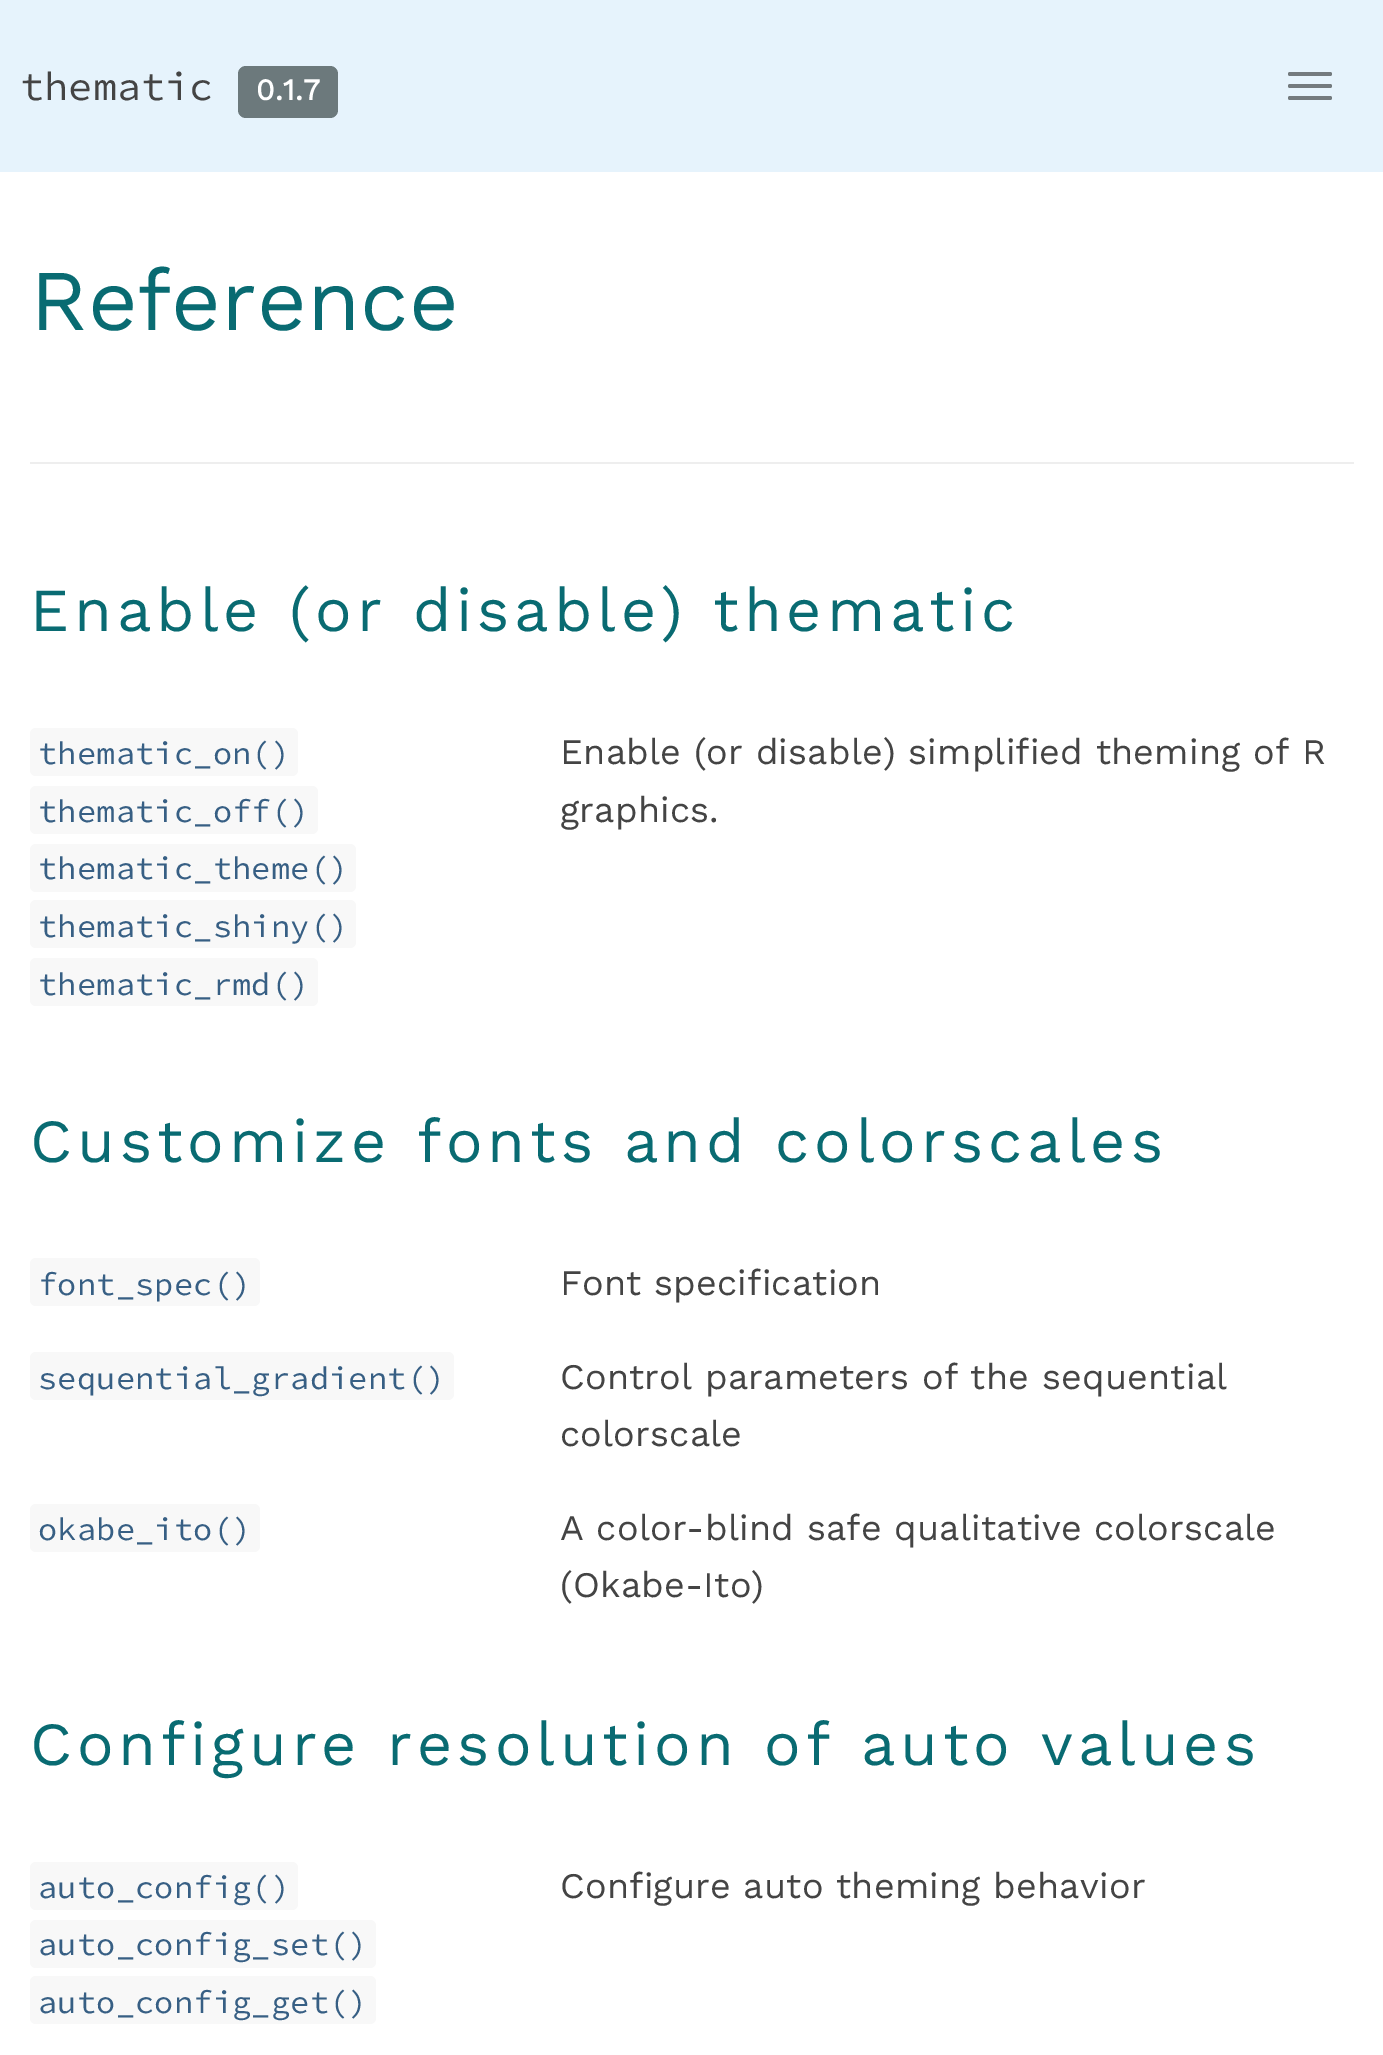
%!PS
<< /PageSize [1383 2055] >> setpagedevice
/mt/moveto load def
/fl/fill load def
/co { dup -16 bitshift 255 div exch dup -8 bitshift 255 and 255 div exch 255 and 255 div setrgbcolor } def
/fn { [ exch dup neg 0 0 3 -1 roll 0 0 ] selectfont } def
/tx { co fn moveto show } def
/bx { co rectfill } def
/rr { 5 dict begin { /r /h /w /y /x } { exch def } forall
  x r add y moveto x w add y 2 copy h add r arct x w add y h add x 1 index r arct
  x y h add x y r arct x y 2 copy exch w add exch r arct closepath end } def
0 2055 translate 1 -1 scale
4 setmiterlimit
0 0 1383 2055 16#FFFFFF bx
0 0 1383 172 16#E6F3FC bx
16#6C797C co
238 66 100 52 8 rr fl
16#737A7E co
1288 72 44 4 2 rr fl
1288 84 44 4 2 rr fl
1288 96 44 4 2 rr fl
30 462 1324 2 16#EEEEEE bx
16#F8F8F8 co
30 728 268 48 6 rr fl
30 786 288 48 6 rr fl
30 844 326 48 6 rr fl
30 900 326 48 6 rr fl
30 958 288 48 6 rr fl
30 1258 230 48 6 rr fl
30 1352 424 48 6 rr fl
30 1504 230 48 6 rr fl
30 1862 268 48 6 rr fl
30 1920 346 48 6 rr fl
30 1976 346 48 6 rr fl
/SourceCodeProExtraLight-ExtraLight 40 fn
16#444444 co
20 100 mt .2 0 (thematic) ashow
/WorkSans-Bold 30 fn
16#FFFFFF co
256 100 mt .2 0 (0.1.7) ashow
(Reference) 30 330 /WorkSans-Regular 86.5 16#096B72 tx
/WorkSans-Regular 61.2 fn
30 631 mt 4.9 0 (Enable \(or disable\) thematic) ashow
/SourceCodeProExtraLight-ExtraLight 32 fn
16#375F84 co
38 764 mt .2 0 (thematic_on\(\)) ashow
38 822 mt .2 0 (thematic_off\(\)) ashow
38 879 mt .2 0 (thematic_theme\(\)) ashow
38 937 mt .2 0 (thematic_shiny\(\)) ashow
38 995 mt .2 0 (thematic_rmd\(\)) ashow
/WorkSans-Regular 36 fn
16#444444 co
560 764 mt .2 0 (Enable \(or disable\) simplified theming of R) ashow
560 822 mt .2 0 (graphics.) ashow
/WorkSans-Regular 61.2 fn
16#096B72 co
30 1162 mt 4.9 0 (Customize fonts and colorscales) ashow
/SourceCodeProExtraLight-ExtraLight 32 fn
16#375F84 co
38 1295 mt .2 0 (font_spec\(\)) ashow
/WorkSans-Regular 36 fn
16#444444 co
560 1295 mt .2 0 (Font specification) ashow
/SourceCodeProExtraLight-ExtraLight 32 fn
16#375F84 co
38 1389 mt .2 0 (sequential_gradient\(\)) ashow
/WorkSans-Regular 36 fn
16#444444 co
560 1389 mt .2 0 (Control parameters of the sequential) ashow
560 1446 mt .2 0 (colorscale) ashow
/SourceCodeProExtraLight-ExtraLight 32 fn
16#375F84 co
38 1540 mt .2 0 (okabe_ito\(\)) ashow
/WorkSans-Regular 36 fn
16#444444 co
560 1540 mt .2 0 (A color-blind safe qualitative colorscale) ashow
560 1597 mt .2 0 (\(Okabe-Ito\)) ashow
/WorkSans-Regular 61.2 fn
16#096B72 co
30 1765 mt 4.9 0 (Configure resolution of auto values) ashow
/SourceCodeProExtraLight-ExtraLight 32 fn
16#375F84 co
38 1898 mt .2 0 (auto_config\(\)) ashow
38 1955 mt .2 0 (auto_config_set\(\)) ashow
38 2013 mt .2 0 (auto_config_get\(\)) ashow
/WorkSans-Regular 36 fn
16#444444 co
560 1898 mt .2 0 (Configure auto theming behavior) ashow
showpage
